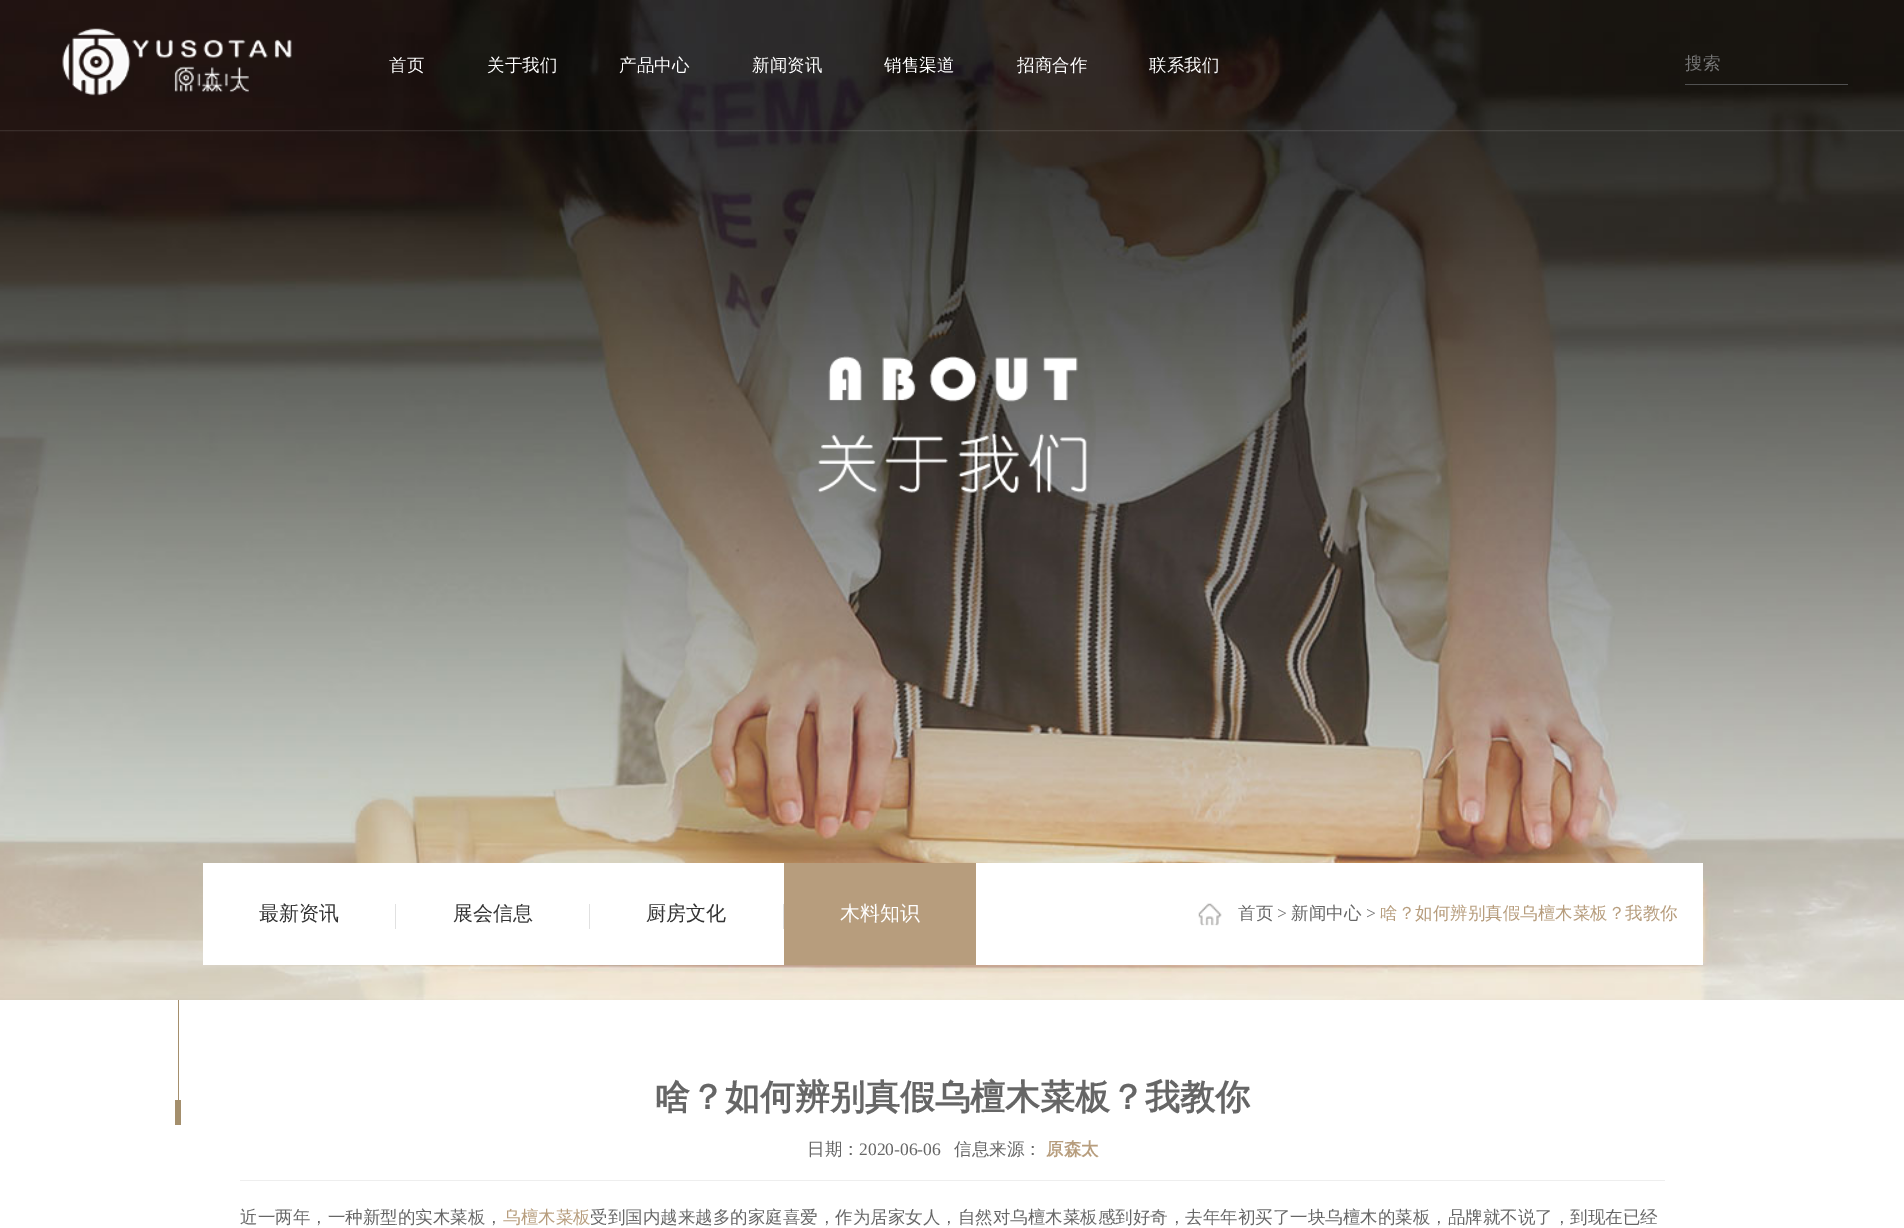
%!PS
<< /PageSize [1904 1228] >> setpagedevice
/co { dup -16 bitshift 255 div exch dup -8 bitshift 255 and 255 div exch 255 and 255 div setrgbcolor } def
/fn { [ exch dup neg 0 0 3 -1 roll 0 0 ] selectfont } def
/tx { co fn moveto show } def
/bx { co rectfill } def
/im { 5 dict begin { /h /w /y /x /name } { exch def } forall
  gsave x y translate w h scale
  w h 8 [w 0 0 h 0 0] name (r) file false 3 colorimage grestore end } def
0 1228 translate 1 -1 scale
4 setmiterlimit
0 0 1904 1228 16#FFFFFF bx
(media/1.raw) 0 0 1904 1000 im
(media/2.raw) 818 356 269 137 im
(media/3.raw) 0 130 1904 2 im
(media/4.raw) 62 28 230 68 im
1685 84 163 1 16#515151 bx
203 863 1500 102 16#FFFFFF bx
395 904 1 25 16#E1E1E1 bx
589 904 1 25 16#E1E1E1 bx
783 904 1 25 16#E1E1E1 bx
784 863 192 102 16#B79D7D bx
(media/5.raw) 1198 903 24 23 im
178 1000 1 100 16#A48F6D bx
175 1100 6 25 16#A48F6D bx
240 1180 1425 1 16#EEEEEE bx
(首页) 389 71 /WenQuanYiZenHei-Medium 17.5 16#FFFFFF tx
(关于我们) 487 71 /WenQuanYiZenHei-Medium 17.5 16#FFFFFF tx
(产品中心) 619 71 /WenQuanYiZenHei-Medium 17.5 16#FFFFFF tx
(新闻资讯) 752 71 /WenQuanYiZenHei-Medium 17.5 16#FFFFFF tx
(销售渠道) 884 71 /WenQuanYiZenHei-Medium 17.5 16#FFFFFF tx
(招商合作) 1017 71 /WenQuanYiZenHei-Medium 17.5 16#FFFFFF tx
(联系我们) 1149 71 /WenQuanYiZenHei-Medium 17.5 16#FFFFFF tx
(搜索) 1685 69 /WenQuanYiZenHei-Medium 17.5 16#757575 tx
(最新资讯) 259 920 /WenQuanYiZenHei-Medium 20 16#333333 tx
(展会信息) 453 920 /WenQuanYiZenHei-Medium 20 16#333333 tx
(厨房文化) 646 920 /WenQuanYiZenHei-Medium 20 16#333333 tx
(木料知识) 840 920 /WenQuanYiZenHei-Medium 20 16#FFFFFF tx
(首页) 1238 919 /WenQuanYiZenHei-Medium 17.5 16#666666 tx
(>) 1277 919 /LiberationSerif-Regular 17.5 16#666666 tx
(新闻中心) 1291 919 /WenQuanYiZenHei-Medium 17.5 16#666666 tx
(>) 1366 919 /LiberationSerif-Regular 17.5 16#666666 tx
(啥？如何辨别真假乌檀木菜板？我教你) 1380 919 /WenQuanYiZenHei-Medium 17.5 16#B79D7D tx
(啥？如何辨别真假乌檀木菜板？我教你) 655 1109 /WenQuanYiZenHei-Bold 35 16#666666 tx
(日期：) 807 1155 /WenQuanYiZenHei-Medium 17.5 16#666666 tx
(2020-06-06) 859 1155 /LiberationSerif-Regular 17.5 16#666666 tx
(信息来源：) 954 1155 /WenQuanYiZenHei-Medium 17.5 16#666666 tx
(原森太) 1046 1155 /WenQuanYiZenHei-Bold 17.5 16#B79D7D tx
(近一两年，一种新型的实木菜板，) 240 1223 /WenQuanYiZenHei-Medium 17.5 16#666666 tx
(乌檀木菜板) 503 1223 /WenQuanYiZenHei-Medium 17.5 16#B79D7D tx
(受到国内越来越多的家庭喜爱，作为居家女人，自然对乌檀木菜板感到好奇，去年年初买了一块乌檀木的菜板，品牌就不说了，到现在已经) 590 1223 /WenQuanYiZenHei-Medium 17.5 16#666666 tx
showpage
